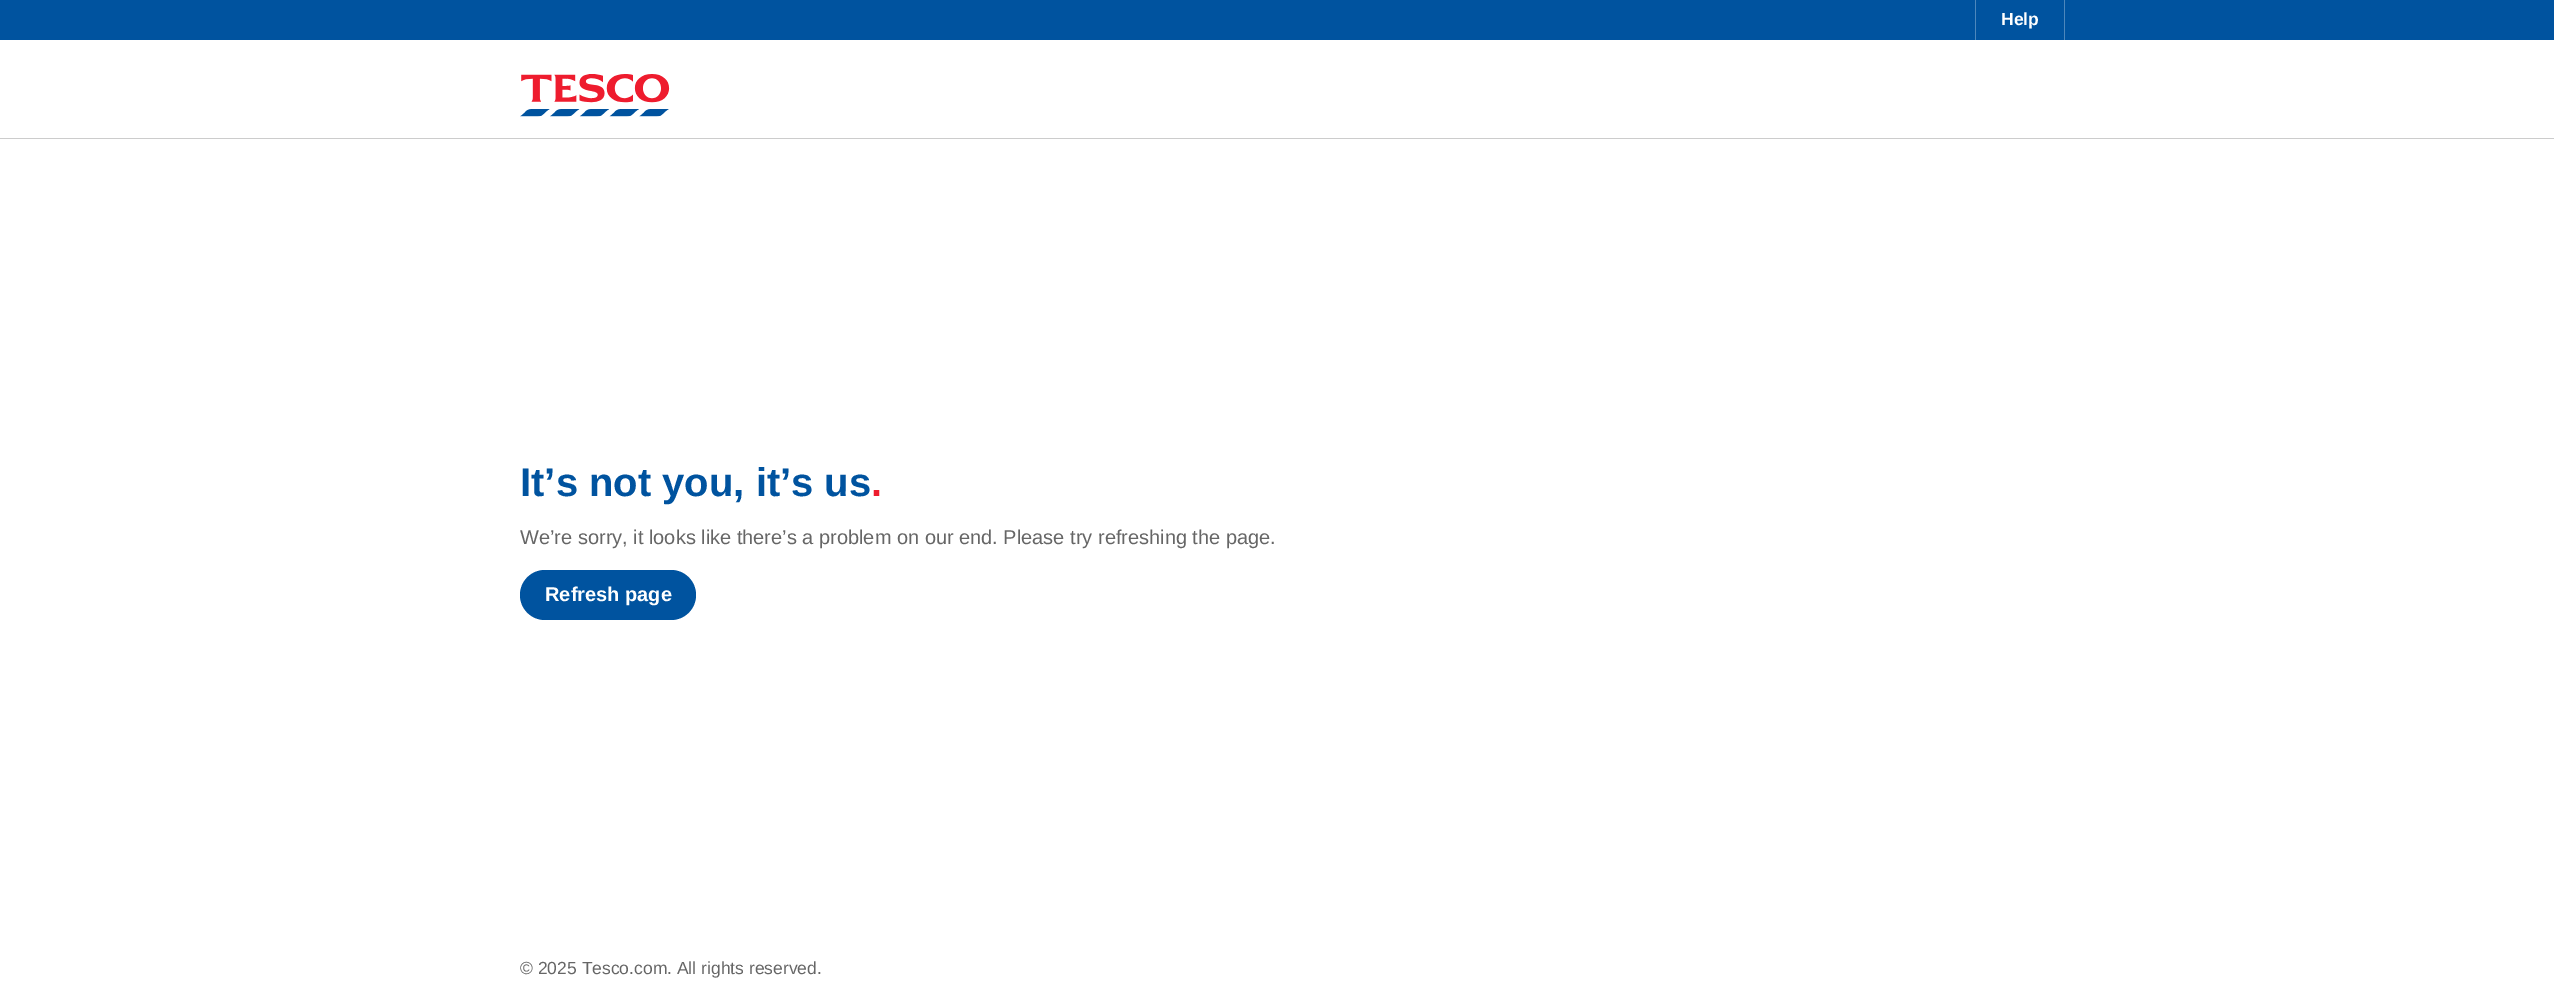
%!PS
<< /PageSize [2554 993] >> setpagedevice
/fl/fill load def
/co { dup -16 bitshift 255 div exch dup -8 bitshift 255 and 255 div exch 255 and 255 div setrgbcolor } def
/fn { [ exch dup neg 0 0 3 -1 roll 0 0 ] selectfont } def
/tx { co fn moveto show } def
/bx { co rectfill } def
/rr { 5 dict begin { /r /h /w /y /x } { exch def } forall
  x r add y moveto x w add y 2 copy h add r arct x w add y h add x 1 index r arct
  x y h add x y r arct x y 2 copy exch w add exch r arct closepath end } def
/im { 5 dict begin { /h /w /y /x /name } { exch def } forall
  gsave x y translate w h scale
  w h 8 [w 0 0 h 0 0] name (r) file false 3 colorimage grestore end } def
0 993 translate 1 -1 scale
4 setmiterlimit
0 0 2554 993 16#FFFFFF bx
0 0 2554 40 16#00539F bx
2064 0 1 40 16#4D87BC bx
1975 0 1 40 16#4D87BC bx
(media/1.raw) 520 74 150 43 im
0 138 2554 1 16#CCCCCC bx
16#00539F co
520 570 176 50 25 rr fl
(Help) 2001 25 /LiberationSans-Bold 17.5 16#FFFFFF tx
(It’s not you, it’s us) 520 496 /LiberationSans-Bold 40 16#00539F tx
(.) 871 496 /LiberationSans-Bold 40 16#EE1C2E tx
(We’re sorry, it looks like there’s a problem on our end. Please try refreshing the page.) 520 544 /LiberationSans-Regular 20 16#666666 tx
(Refresh page) 545 601 /LiberationSans-Bold 20 16#FFFFFF tx
(© 2025 Tesco.com. All rights reserved.) 520 974 /LiberationSans-Regular 17.5 16#666666 tx
showpage
